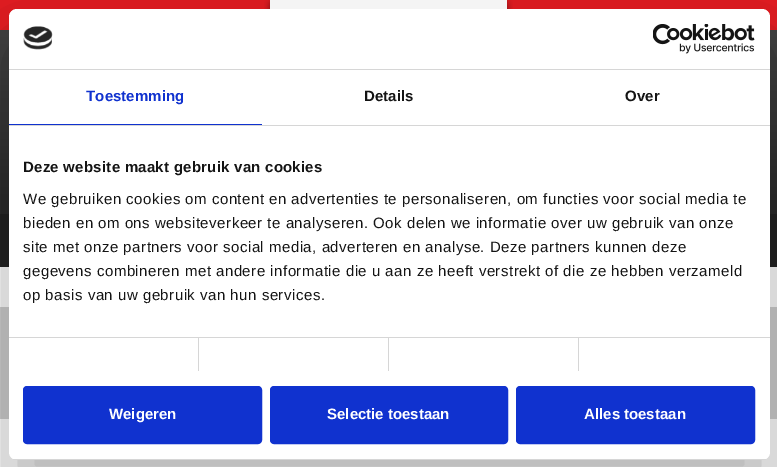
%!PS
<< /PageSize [777 467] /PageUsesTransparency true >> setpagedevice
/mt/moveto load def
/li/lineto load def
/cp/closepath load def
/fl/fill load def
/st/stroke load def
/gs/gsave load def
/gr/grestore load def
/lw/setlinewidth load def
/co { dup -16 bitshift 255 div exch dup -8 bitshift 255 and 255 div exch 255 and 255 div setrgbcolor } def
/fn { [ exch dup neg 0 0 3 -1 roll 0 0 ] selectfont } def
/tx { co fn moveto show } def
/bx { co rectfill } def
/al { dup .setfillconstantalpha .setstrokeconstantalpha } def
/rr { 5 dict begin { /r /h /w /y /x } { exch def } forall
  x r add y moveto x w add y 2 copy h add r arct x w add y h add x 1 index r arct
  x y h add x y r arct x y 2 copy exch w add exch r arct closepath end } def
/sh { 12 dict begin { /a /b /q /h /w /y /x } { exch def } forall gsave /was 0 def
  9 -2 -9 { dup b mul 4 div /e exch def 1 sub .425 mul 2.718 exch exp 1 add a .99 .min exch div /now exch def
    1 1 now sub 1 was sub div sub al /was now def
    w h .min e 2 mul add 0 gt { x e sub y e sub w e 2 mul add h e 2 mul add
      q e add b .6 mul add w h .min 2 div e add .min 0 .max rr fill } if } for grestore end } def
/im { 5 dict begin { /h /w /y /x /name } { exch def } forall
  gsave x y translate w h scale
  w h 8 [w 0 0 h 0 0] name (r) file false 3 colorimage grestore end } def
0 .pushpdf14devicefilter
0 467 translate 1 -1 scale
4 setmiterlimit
0 0 777 467 16#FFFFFF bx
0 0 777 30 16#E21C21 bx
gs 0 30 mt 777 30 li 777 214 li 0 214 li cp clip newpath
<< /ShadingType 2 /ColorSpace /DeviceRGB /Coords [389 30 389 267] /Extend [true true] /Function << /FunctionType 2 /Domain [0 1] /C0 [.271 .271 .271] /C1 [.133 .133 .133] /N 1 >> >> shfill gr
(media/1.raw) 264 0 249 9 im
0 214 777 53 16#222222 bx
0 307 777 112 16#D0D0D0 bx
16#000000 co
9 41 761 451 8 34 .3 sh
16#FFFFFF co
9 9 761 451 8 rr fl
9 69 761 1 16#D6D6D6 bx
(media/2.raw) 23 26 30 24 im
(media/3.raw) 653 24 102 30 im
9 125 761 1 16#D6D6D6 bx
9 124 253 1 16#1032CF bx
9 337 761 1 16#D6D6D6 bx
198 338 1 33 16#D6D6D6 bx
388 338 1 33 16#D6D6D6 bx
578 338 1 33 16#D6D6D6 bx
gs
9 9 761 451 8 rr clip newpath
9 459 761 1 16#D6D6D6 bx
gr
16#1032CF co
24 387 237 56 3 rr gs fl gr
2 lw
st
271 387 236 56 3 rr gs fl gr
st
517 387 237 56 3 rr gs fl gr
st
/LiberationSans-Bold 15 fn
86 101 mt .1 0 (Toestemming) ashow
16#141414 co
364 101 mt .1 0 (Details) ashow
625 101 mt .1 0 (Over) ashow
23 172 mt .25 0 (Deze website maakt gebruik van cookies) ashow
/LiberationSans-Regular 15 fn
23 204 mt .5 0 (We gebruiken cookies om content en advertenties te personaliseren, om functies voor social media te) ashow
23 228 mt .5 0 (bieden en om ons websiteverkeer te analyseren. Ook delen we informatie over uw gebruik van onze) ashow
23 252 mt .5 0 (site met onze partners voor social media, adverteren en analyse. Deze partners kunnen deze) ashow
23 276 mt .5 0 (gegevens combineren met andere informatie die u aan ze heeft verstrekt of die ze hebben verzameld) ashow
23 300 mt .5 0 (op basis van uw gebruik van hun services.) ashow
(Weigeren) 109 419 /LiberationSans-Bold 15 16#FFFFFF tx
(Selectie toestaan) 327 419 /LiberationSans-Bold 15 16#FFFFFF tx
(Alles toestaan) 584 419 /LiberationSans-Bold 15 16#FFFFFF tx
.poppdf14devicefilter showpage
